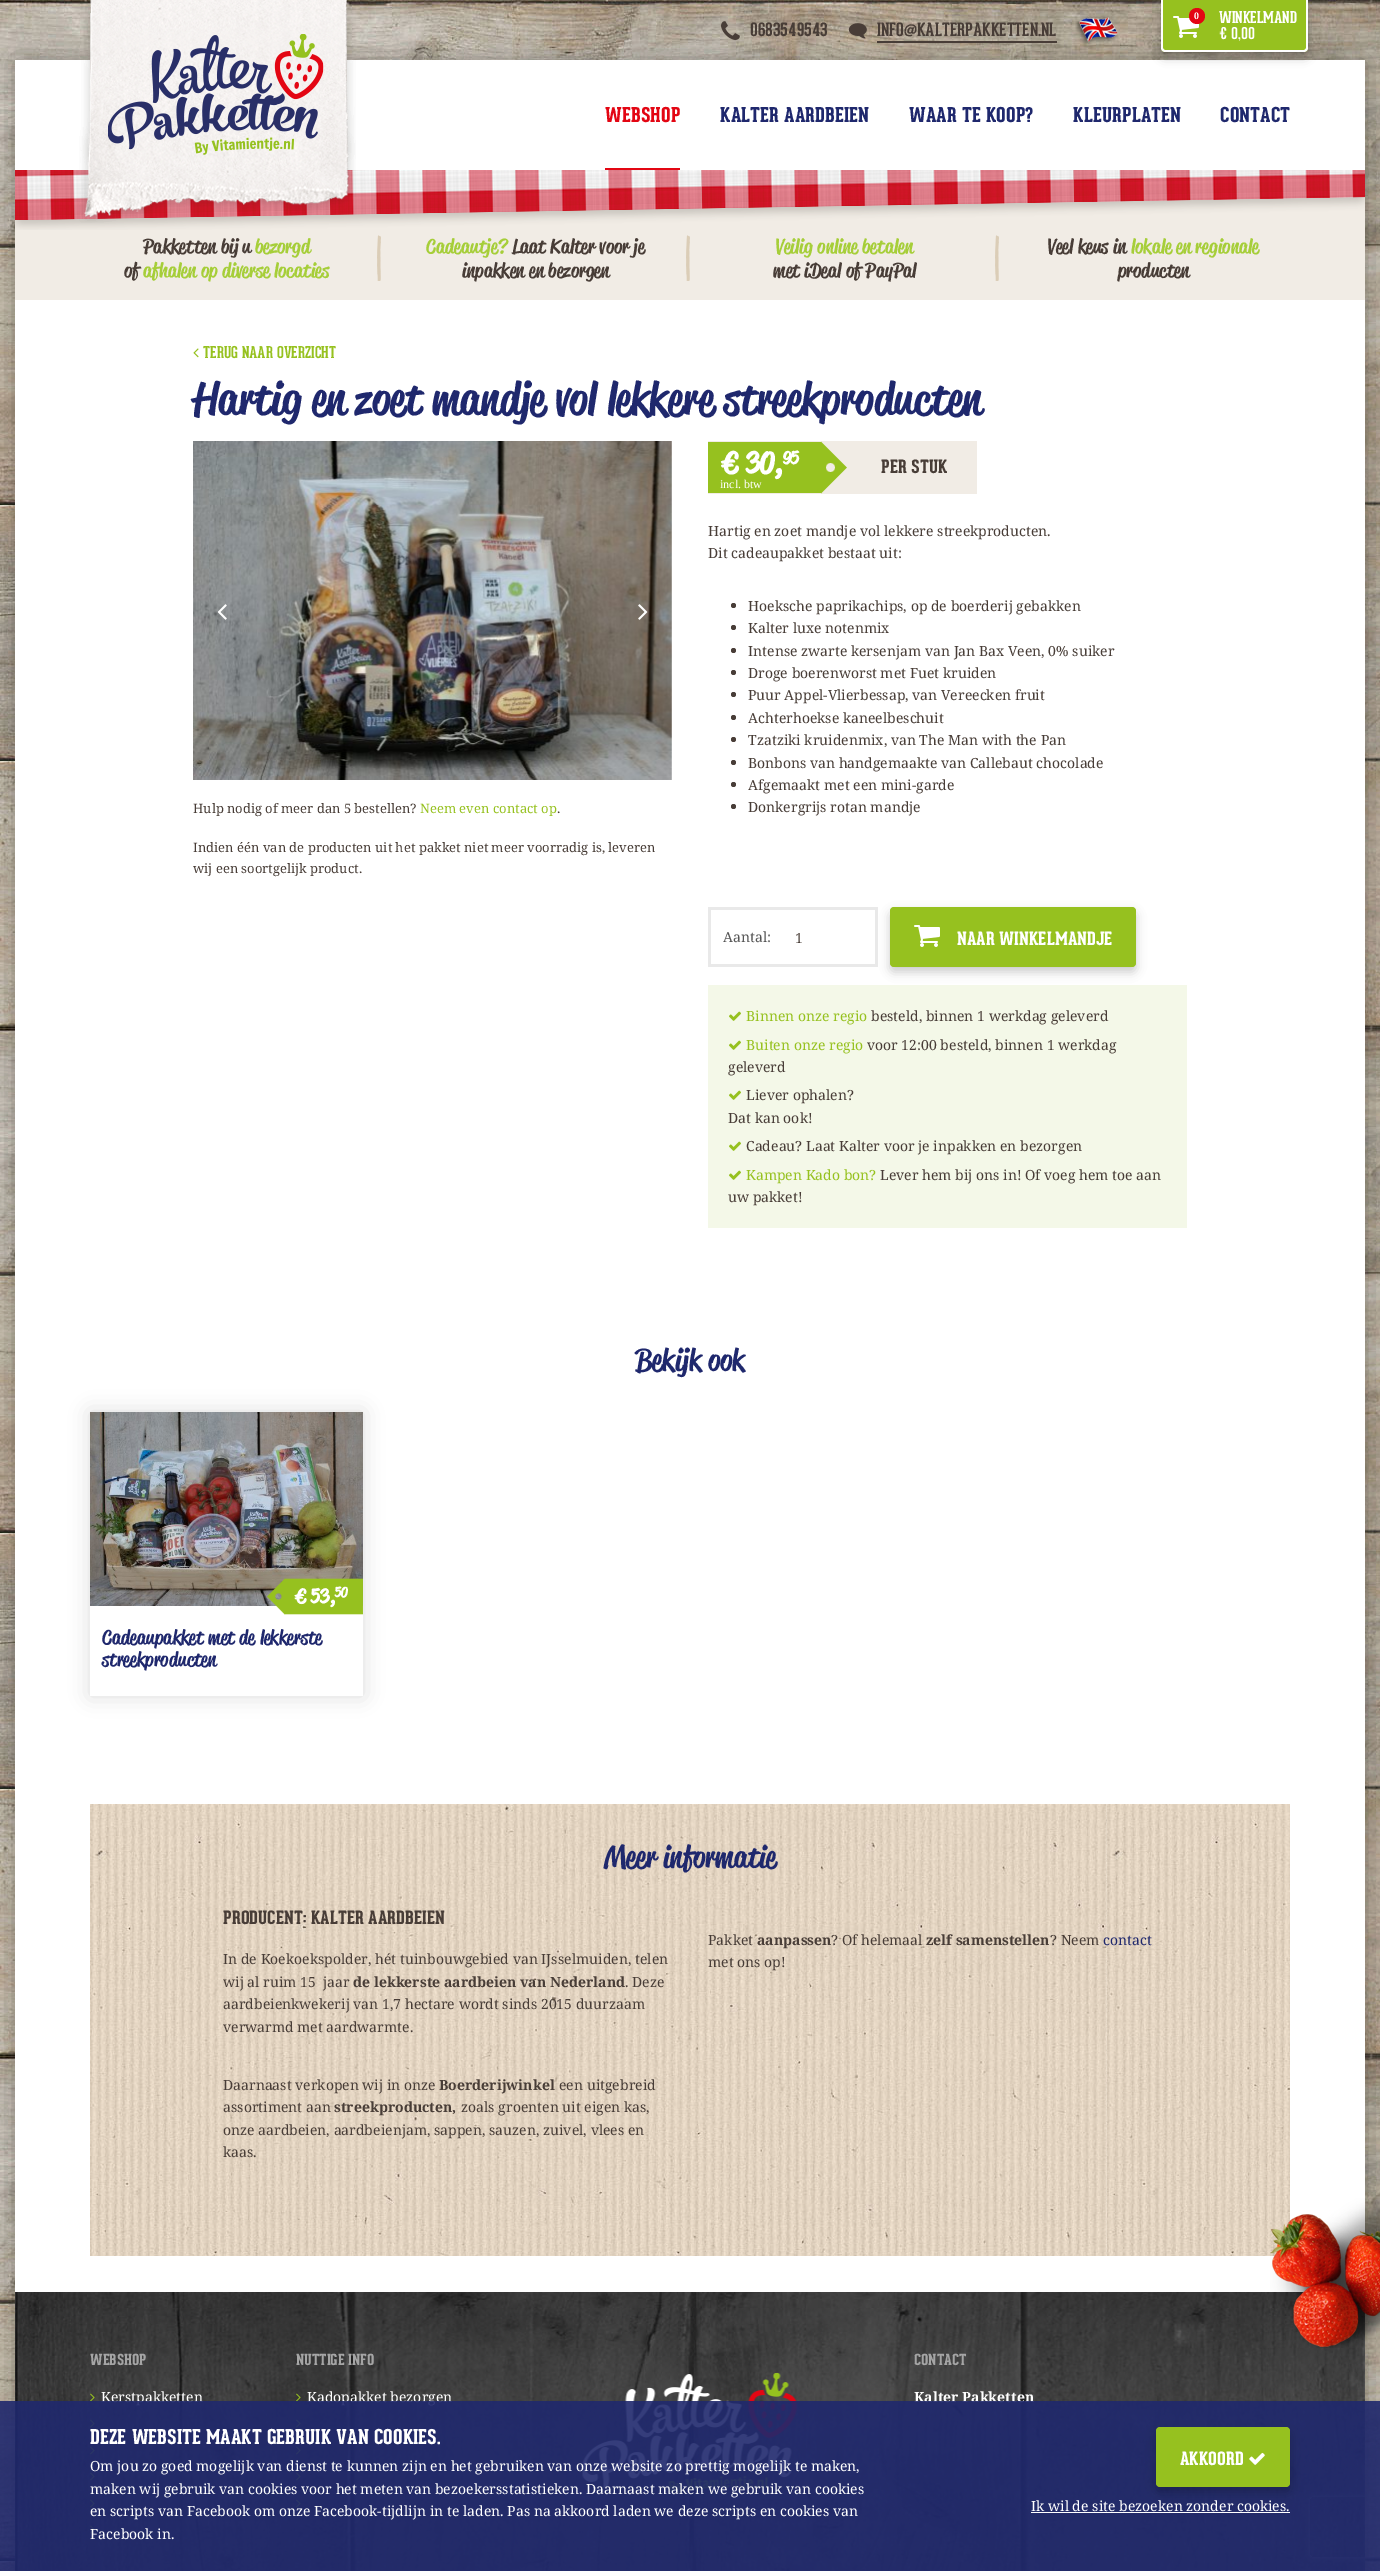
%!PS
<< /PageSize [1380 2571] /PageUsesTransparency true >> setpagedevice
/mt/moveto load def
/li/lineto load def
/ct/curveto load def
/cp/closepath load def
/fl/fill load def
/gs/gsave load def
/gr/grestore load def
/co { dup -16 bitshift 255 div exch dup -8 bitshift 255 and 255 div exch 255 and 255 div setrgbcolor } def
/fn { [ exch dup neg 0 0 3 -1 roll 0 0 ] selectfont } def
/tx { co fn moveto show } def
/bx { co rectfill } def
/al { dup .setfillconstantalpha .setstrokeconstantalpha } def
/ci { newpath 0 360 arc closepath } def
/rr { 5 dict begin { /r /h /w /y /x } { exch def } forall
  x r add y moveto x w add y 2 copy h add r arct x w add y h add x 1 index r arct
  x y h add x y r arct x y 2 copy exch w add exch r arct closepath end } def
/sh { 12 dict begin { /a /b /q /h /w /y /x } { exch def } forall gsave /was 0 def
  9 -2 -9 { dup b mul 4 div /e exch def 1 sub .425 mul 2.718 exch exp 1 add a .99 .min exch div /now exch def
    1 1 now sub 1 was sub div sub al /was now def
    w h .min e 2 mul add 0 gt { x e sub y e sub w e 2 mul add h e 2 mul add
      q e add b .6 mul add w h .min 2 div e add .min 0 .max rr fill } if } for grestore end } def
/im { 5 dict begin { /h /w /y /x /name } { exch def } forall
  gsave x y translate w h scale
  w h 8 [w 0 0 h 0 0] name (r) file false 3 colorimage grestore end } def
0 .pushpdf14devicefilter
0 2571 translate 1 -1 scale
4 setmiterlimit
0 0 1380 2571 16#FFFFFF bx
(media/1.raw) 0 0 1380 2571 im
16#1F1D17 co
15 60 1350 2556 0 15 .4 sh
15 60 1350 2232 16#FFFFFF bx
(media/2.raw) 721 21 19 19 im
(media/3.raw) 848 23 19 16 im
877 41 180 2 16#483D37 bx
(media/4.raw) 1075 17 43 29 im
16#000000 co
1161 5 147 52 4 5 .3 sh
16#96C11F co
1161 0 mt 1308 0 li 1308 48 li 1308 50 1306 52 1304 52 ct 1165 52 li 1163 52 1161 50 1161 48 ct cp fl
16#FFFFFF co
1161 0 mt 1308 0 li 1308 48 li 1308 50 1306 52 1304 52 ct 1165 52 li 1163 52 1161 50 1161 48 ct cp 1163 0 mt 1306 0 li 1306 48 li 1306 49 1305 50 1304 50 ct 1165 50 li 1164 50 1163 49 1163 48 ct cp eofill
(media/5.raw) 1173 16 26 22 im
16#E30613 co
1197 16 8 ci fl
15 170 1350 130 16#F1ECE5 bx
(media/8.raw) 15 170 1350 60 im
(media/6.raw) 79 0 277 223 im
(media/7.raw) 108 34 216 121 im
605 168 75 2 16#E30613 bx
(media/9.raw) 377 235 4 46 im
(media/9.raw) 686 235 4 46 im
(media/9.raw) 995 235 4 46 im
(media/10.raw) 193 348 6 10 im
(media/11.raw) 193 441 479 339 im
(media/12.raw) 217 604 10 16 im
(media/13.raw) 638 604 10 16 im
708 441 269 53 16#F1ECE5 bx
(media/14.raw) 708 441 139 53 im
16#483D37 co
733.5 605.5 2.5 ci fl
733.5 627.5 2.5 ci fl
733.5 650.5 2.5 ci fl
733.5 672.5 2.5 ci fl
733.5 694.5 2.5 ci fl
733.5 717.5 2.5 ci fl
733.5 739.5 2.5 ci fl
733.5 762.5 2.5 ci fl
733.5 784.5 2.5 ci fl
733.5 806.5 2.5 ci fl
708 985 479 243 16#F4F8E8 bx
16#000000 co
890 912 246 60 4 5 .2 sh
708 907 170 3 16#E9E9E9 bx
708 964 75 3 16#E9E9E9 bx
708 907 3 60 16#E9E9E9 bx
875 907 3 60 16#E9E9E9 bx
783 964 95 3 16#E9E9E9 bx
16#96C11F co
890 907 246 60 4 rr fl
(media/5.raw) 914 925 26 22 im
(media/15.raw) 729 1011 12 10 im
(media/15.raw) 729 1040 12 10 im
(media/15.raw) 729 1090 12 10 im
(media/15.raw) 729 1141 12 10 im
(media/15.raw) 729 1170 12 10 im
gs
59 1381 mt 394 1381 li 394 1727 li 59 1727 li cp 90 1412 mt 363 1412 li 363 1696 li 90 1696 li cp eoclip newpath
16#1F1D17 co
90 1412 273 284 0 10 .15 sh
gr
(media/16.raw) 90 1412 273 194 im
(media/17.raw) 267 1578 96 37 im
(media/18.raw) 90 1804 1200 452 im
(media/19.raw) 15 2292 1350 279 im
(media/20.raw) 1270 2198 110 150 im
(media/21.raw) 90 2393 5 9 im
(media/22.raw) 90 2419 5 9 im
(media/23.raw) 90 2446 5 9 im
(media/24.raw) 90 2472 5 9 im
(media/25.raw) 90 2499 5 9 im
(media/26.raw) 90 2525 5 9 im
(media/27.raw) 296 2393 5 9 im
(media/28.raw) 296 2419 5 9 im
(media/29.raw) 296 2446 5 9 im
(media/30.raw) 296 2472 5 9 im
(media/31.raw) 296 2499 5 9 im
(media/32.raw) 582 2372 216 122 im
gs
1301 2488 mt 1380 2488 li 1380 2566 li 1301 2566 li cp 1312 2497 mt 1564 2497 li 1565 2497 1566 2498 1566 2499 ct 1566 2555 li 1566 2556 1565 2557 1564 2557 ct 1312 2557 li 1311 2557 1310 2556 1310 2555 ct 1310 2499 li 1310 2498 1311 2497 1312 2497 ct cp eoclip newpath
16#808080 co
1310 2497 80 60 2 2.5 1 sh
gr
(0683549543) 750 36 /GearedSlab-Bold 18 16#483D37 tx
(INFO@KALTERPAKKETTEN.NL) 877 36 /GearedSlab-Bold 18 16#483D37 tx
(0) 1194 19 /LiberationSerif-Bold 10 16#FFFFFF tx
(WINKELMAND) 1219 23 /GearedSlab-Bold 16 16#FFFFFF tx
(€ 0,00) 1219 39 /GearedSlab-Bold 16 16#FFFFFF tx
(WEBSHOP) 605 122 /GearedSlab-ExtraBold 20 16#E30613 tx
(KALTER AARDBEIEN) 720 122 /GearedSlab-ExtraBold 20 16#1F286D tx
(WAAR TE KOOP?) 909 122 /GearedSlab-ExtraBold 20 16#1F286D tx
(KLEURPLATEN) 1073 122 /GearedSlab-ExtraBold 20 16#1F286D tx
(CONTACT) 1220 122 /GearedSlab-ExtraBold 20 16#1F286D tx
(Pakketten bij u) 143 253 /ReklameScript-Medium 20 16#483D37 tx
(bezorgd) 255 253 /ReklameScript-Medium 20 16#A6CE39 tx
(of) 124 277 /ReklameScript-Medium 20 16#483D37 tx
(afhalen op diverse locaties) 143 277 /ReklameScript-Medium 20 16#A6CE39 tx
(Cadeautje?) 426 253 /ReklameScript-Medium 20 16#A6CE39 tx
(Laat Kalter voor je) 512 253 /ReklameScript-Medium 20 16#483D37 tx
(inpakken en bezorgen) 462 277 /ReklameScript-Medium 20 16#483D37 tx
(Veilig online betalen) 776 253 /ReklameScript-Medium 20 16#A6CE39 tx
(met iDeal of PayPal) 773 277 /ReklameScript-Medium 20 16#483D37 tx
(Veel keus in) 1048 253 /ReklameScript-Medium 20 16#483D37 tx
(lokale en regionale) 1131 253 /ReklameScript-Medium 20 16#A6CE39 tx
(producten) 1118 277 /ReklameScript-Medium 20 16#483D37 tx
(TERUG NAAR OVERZICHT) 203 358 /GearedSlab-Bold 16 16#96C11F tx
(Hartig en zoet mandje vol lekkere streekproducten) 193 414 /ReklameScript-Medium 45 16#1F286D tx
(Hulp nodig of meer dan 5 bestellen?) 193 813 /NotoSerif-Regular 13 16#483D37 tx
(Neem even contact op) 420 813 /NotoSerif-Regular 13 16#96C11F tx
(.) 557 813 /NotoSerif-Regular 13 16#483D37 tx
(Indien één van de producten uit het pakket niet meer voorradig is, leveren) 193 852 /NotoSerif-Regular 13 16#483D37 tx
(wij een soortgelijk product.) 193 873 /NotoSerif-Regular 13 16#483D37 tx
(€ 30,) 720 473 /ReklameScript-Bold 30 16#FFFFFF tx
(95) 783 464 /ReklameScript-Bold 18 16#FFFFFF tx
(incl. btw) 720 488 /LiberationSerif-Regular 12 16#FFFFFF tx
(PER STUK) 881 473 /GearedSlab-ExtraBold 18 16#483D37 tx
(Hartig en zoet mandje vol lekkere streekproducten.) 708 536 /NotoSerif-Regular 14 16#483D37 tx
(Dit cadeaupakket bestaat uit:) 708 558 /NotoSerif-Regular 14 16#483D37 tx
(Hoeksche paprikachips, op de boerderij gebakken) 748 611 /NotoSerif-Regular 14 16#483D37 tx
(Kalter luxe notenmix) 748 633 /NotoSerif-Regular 14 16#483D37 tx
(Intense zwarte kersenjam van Jan Bax Veen, 0% suiker) 748 656 /NotoSerif-Regular 14 16#483D37 tx
(Droge boerenworst met Fuet kruiden) 748 678 /NotoSerif-Regular 14 16#483D37 tx
(Puur Appel-Vlierbessap, van Vereecken fruit) 748 700 /NotoSerif-Regular 14 16#483D37 tx
(Achterhoekse kaneelbeschuit) 748 723 /NotoSerif-Regular 14 16#483D37 tx
(Tzatziki kruidenmix, van The Man with the Pan) 748 745 /NotoSerif-Regular 14 16#483D37 tx
(Bonbons van handgemaakte van Callebaut chocolade) 748 768 /NotoSerif-Regular 14 16#483D37 tx
(Afgemaakt met een mini-garde) 748 790 /NotoSerif-Regular 14 16#483D37 tx
(Donkergrijs rotan mandje) 748 812 /NotoSerif-Regular 14 16#483D37 tx
(Aantal:) 723 942 /NotoSerif-Regular 14 16#555555 tx
(1) 795 943 /NotoSerif-Regular 14 16#483D37 tx
(NAAR WINKELMANDJE) 957 945 /GearedSlab-ExtraBold 18 16#FFFFFF tx
(Binnen onze regio) 746 1021 /NotoSerif-Regular 14 16#96C11F tx
(besteld, binnen 1 werkdag geleverd) 871 1021 /NotoSerif-Regular 14 16#483D37 tx
(Buiten onze regio) 746 1050 /NotoSerif-Regular 14 16#96C11F tx
(voor 12:00 besteld, binnen 1 werkdag) 867 1050 /NotoSerif-Regular 14 16#483D37 tx
(geleverd) 728 1072 /NotoSerif-Regular 14 16#483D37 tx
(Liever ophalen?) 746 1100 /NotoSerif-Regular 14 16#483D37 tx
(Dat kan ook!) 728 1123 /NotoSerif-Regular 14 16#483D37 tx
(Cadeau? Laat Kalter voor je inpakken en bezorgen) 746 1151 /NotoSerif-Regular 14 16#483D37 tx
(Kampen Kado bon?) 746 1180 /NotoSerif-Regular 14 16#96C11F tx
(Lever hem bij ons in! Of voeg hem toe aan) 880 1180 /NotoSerif-Regular 14 16#483D37 tx
(uw pakket!) 728 1202 /NotoSerif-Regular 14 16#483D37 tx
(Bekijk ook) 635 1370 /ReklameScript-Medium 30 16#1F286D tx
(€ 53,) 294 1603 /ReklameScript-Bold 20 16#FFFFFF tx
(50) 335 1597 /ReklameScript-Bold 14 16#FFFFFF tx
(Cadeaupakket met de lekkerste) 102 1644 /ReklameScript-Medium 20 16#1F286D tx
(streekproducten) 102 1666 /ReklameScript-Medium 20 16#1F286D tx
(Meer informatie) 604 1867 /ReklameScript-Medium 30 16#1F286D tx
(PRODUCENT: KALTER AARDBEIEN) 223 1924 /GearedSlab-ExtraBold 18 16#483D37 tx
(In de Koekoekspolder, hét tuinbouwgebied van IJsselmuiden, telen) 223 1964 /NotoSerif-Regular 14 16#483D37 tx
(wij al ruim 15  jaar) 223 1987 /NotoSerif-Regular 14 16#483D37 tx
(de lekkerste aardbeien van Nederland) 353 1987 /NotoSerif-Bold 14 16#483D37 tx
(. Deze) 625 1987 /NotoSerif-Regular 14 16#483D37 tx
(aardbeienkwekerij van 1,7 hectare wordt sinds 2015 duurzaam) 223 2009 /NotoSerif-Regular 14 16#483D37 tx
(verwarmd met aardwarmte.) 223 2032 /NotoSerif-Regular 14 16#483D37 tx
(Daarnaast verkopen wij in onze) 223 2090 /NotoSerif-Regular 14 16#483D37 tx
(Boerderijwinkel) 439 2090 /NotoSerif-Bold 14 16#483D37 tx
(een uitgebreid) 559 2090 /NotoSerif-Regular 14 16#483D37 tx
(assortiment aan) 223 2112 /NotoSerif-Regular 14 16#483D37 tx
(streekproducten,) 334 2112 /NotoSerif-Bold 14 16#483D37 tx
(zoals groenten uit eigen kas,) 461 2112 /NotoSerif-Regular 14 16#483D37 tx
(onze aardbeien, aardbeienjam, sappen, sauzen, zuivel, vlees en) 223 2135 /NotoSerif-Regular 14 16#483D37 tx
(kaas.) 223 2157 /NotoSerif-Regular 14 16#483D37 tx
(Pakket) 708 1945 /NotoSerif-Regular 14 16#483D37 tx
(aanpassen) 757 1945 /NotoSerif-Bold 14 16#483D37 tx
(? Of helemaal) 831 1945 /NotoSerif-Regular 14 16#483D37 tx
(zelf samenstellen) 926 1945 /NotoSerif-Bold 14 16#483D37 tx
(? Neem) 1050 1945 /NotoSerif-Regular 14 16#483D37 tx
(contact) 1103 1945 /NotoSerif-Regular 14 16#1F286D tx
(met ons op!) 708 1967 /NotoSerif-Regular 14 16#483D37 tx
(WEBSHOP) 90 2365 /GearedSlab-ExtraBold 15 16#A5A5A5 tx
(Kerstpakketten) 101 2402 /NotoSerif-Regular 14 16#FFFFFF tx
(NUTTIGE INFO) 296 2365 /GearedSlab-ExtraBold 15 16#A5A5A5 tx
(Kadopakket bezorgen) 307 2402 /NotoSerif-Regular 14 16#FFFFFF tx
(CONTACT) 914 2365 /GearedSlab-ExtraBold 15 16#A5A5A5 tx
(Kalter Pakketten) 914 2402 /NotoSerif-Bold 14 16#FFFFFF tx
0.9 al
0 2401 1380 170 16#1F286D bx
1 al
(DEZE WEBSITE MAAKT GEBRUIK VAN COOKIES.) 90 2444 /GearedSlab-ExtraBold 20 16#FFFFFF tx
(Om jou zo goed mogelijk van dienst te kunnen zijn en het gebruiken van onze website zo prettig mogelijk te maken,) 90 2471 /NotoSerif-Regular 14 16#FFFFFF tx
(maken wij gebruik van cookies voor het meten van bezoekersstatistieken. Daarnaast maken we gebruik van cookies) 90 2494 /NotoSerif-Regular 14 16#FFFFFF tx
(en scripts van Facebook om onze Facebook-tijdlijn in te laden. Pas na akkoord laden we deze scripts en cookies van) 90 2516 /NotoSerif-Regular 14 16#FFFFFF tx
(Facebook in.) 90 2539 /NotoSerif-Regular 14 16#FFFFFF tx
16#000000 co
1156 2432 134 60 4 5 .2 sh
16#96C11F co
1156 2427 134 60 4 rr fl
(AKKOORD) 1180 2465 /GearedSlab-ExtraBold 18 16#FFFFFF tx
(media/33.raw) 1249 2452 16 13 im
(Ik wil de site bezoeken zonder cookies.) 1031 2511 /NotoSerif-Regular 14 16#FFFFFF tx
1031 2512 259 1 16#FFFFFF bx
.poppdf14devicefilter showpage
